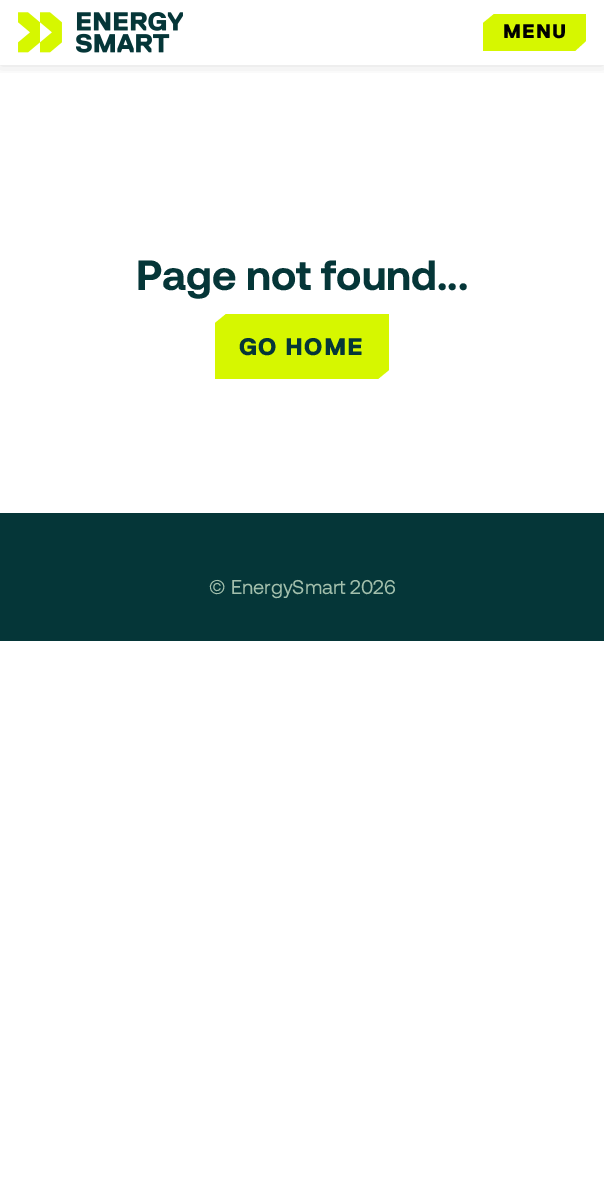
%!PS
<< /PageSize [604 1198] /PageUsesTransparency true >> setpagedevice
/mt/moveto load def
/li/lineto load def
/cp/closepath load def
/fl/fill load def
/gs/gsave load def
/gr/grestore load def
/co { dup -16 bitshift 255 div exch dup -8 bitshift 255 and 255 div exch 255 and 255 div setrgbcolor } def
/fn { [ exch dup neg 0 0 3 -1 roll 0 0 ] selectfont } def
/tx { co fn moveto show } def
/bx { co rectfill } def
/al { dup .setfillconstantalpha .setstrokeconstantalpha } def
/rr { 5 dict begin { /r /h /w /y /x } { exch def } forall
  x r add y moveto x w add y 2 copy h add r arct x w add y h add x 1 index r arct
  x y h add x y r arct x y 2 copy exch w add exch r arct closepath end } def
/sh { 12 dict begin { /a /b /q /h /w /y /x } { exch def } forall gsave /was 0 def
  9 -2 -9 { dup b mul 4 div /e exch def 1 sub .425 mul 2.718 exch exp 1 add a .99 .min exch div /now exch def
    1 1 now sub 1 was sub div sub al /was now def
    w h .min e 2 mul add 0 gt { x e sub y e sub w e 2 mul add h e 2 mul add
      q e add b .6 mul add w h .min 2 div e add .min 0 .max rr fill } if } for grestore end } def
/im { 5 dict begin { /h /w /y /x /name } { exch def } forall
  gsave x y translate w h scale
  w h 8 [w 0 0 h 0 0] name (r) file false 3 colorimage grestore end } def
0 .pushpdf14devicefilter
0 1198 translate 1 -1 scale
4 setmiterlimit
0 0 604 1198 16#FFFFFF bx
gs
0 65 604 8 rectclip
16#000000 co
0 0 604 65 0 8 .13 sh
gr
(media/1.raw) 18 12 165 41 im
16#D6F700 co
494 14 mt 586 14 li 586 41 li 575 51 li 483 51 li 483 23 li cp fl
389 314 mt 389 370 li 378 379 li 215 379 li 215 323 li 226 314 li cp fl
0 513 604 128 16#053638 bx
/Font-ExtraBold 19.5 fn
16#000000 co
503 38 mt 1 0 (MENU) ashow
/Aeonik-Bold 42.25 fn
16#053638 co
136 290 mt -1 0 32 (Page not found...) widthshow
/Font-ExtraBold 24 fn
239 355 mt 1.25 0 (GO HOME) ashow
(© EnergySmart) 209 594 /Aeonik-Regular 20 16#A2BFAC tx
(2026) 350 594 /Aeonik-Regular 20 16#A2BFAC tx
.poppdf14devicefilter showpage
